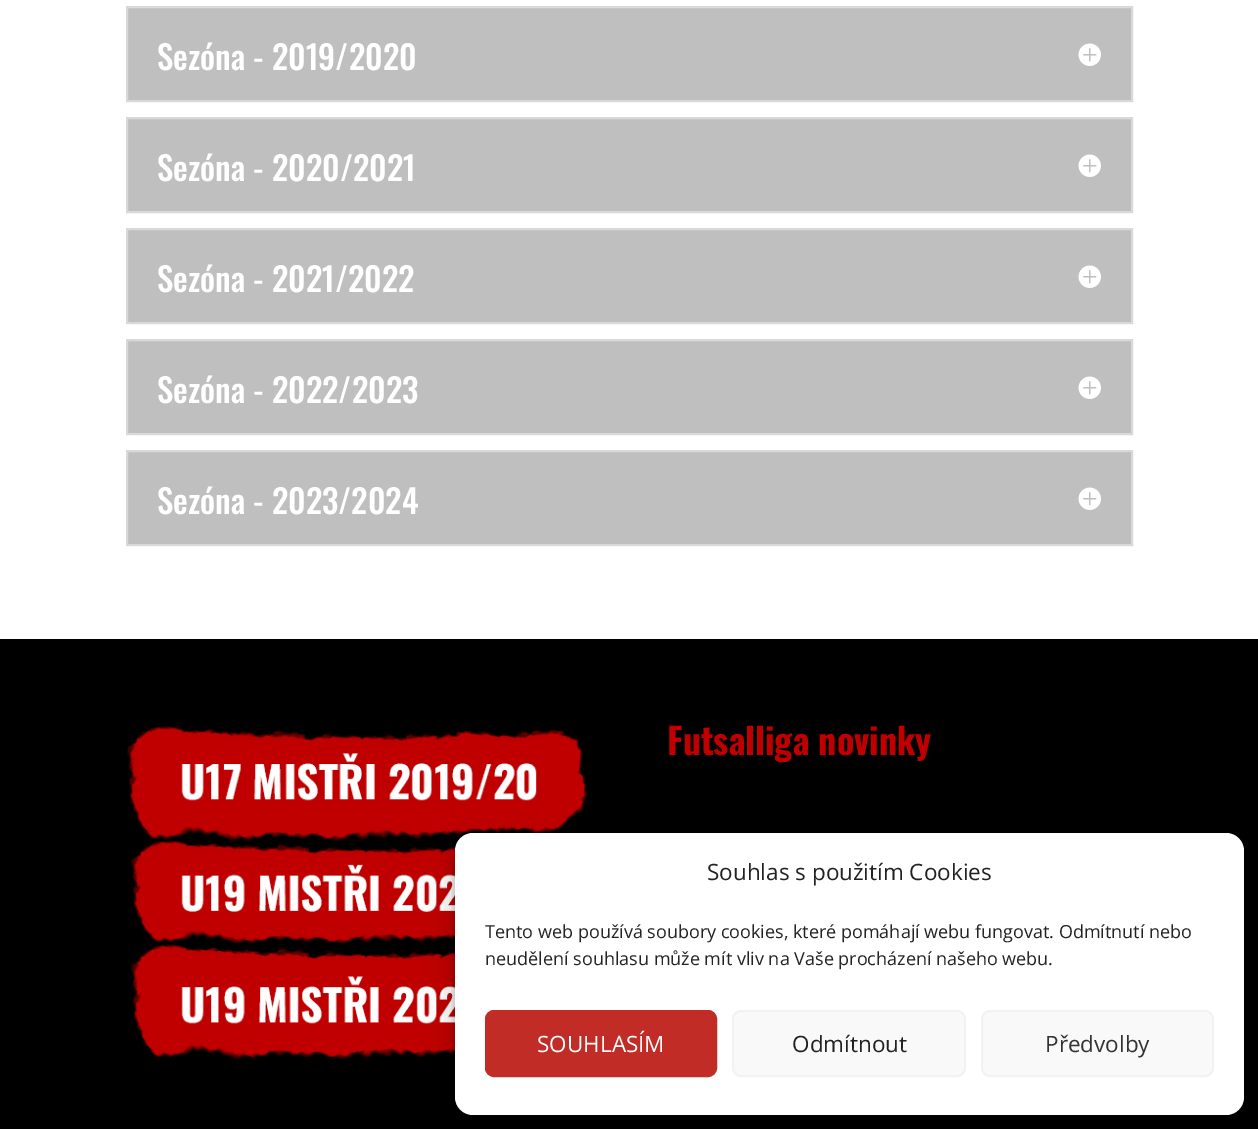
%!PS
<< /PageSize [1258 1129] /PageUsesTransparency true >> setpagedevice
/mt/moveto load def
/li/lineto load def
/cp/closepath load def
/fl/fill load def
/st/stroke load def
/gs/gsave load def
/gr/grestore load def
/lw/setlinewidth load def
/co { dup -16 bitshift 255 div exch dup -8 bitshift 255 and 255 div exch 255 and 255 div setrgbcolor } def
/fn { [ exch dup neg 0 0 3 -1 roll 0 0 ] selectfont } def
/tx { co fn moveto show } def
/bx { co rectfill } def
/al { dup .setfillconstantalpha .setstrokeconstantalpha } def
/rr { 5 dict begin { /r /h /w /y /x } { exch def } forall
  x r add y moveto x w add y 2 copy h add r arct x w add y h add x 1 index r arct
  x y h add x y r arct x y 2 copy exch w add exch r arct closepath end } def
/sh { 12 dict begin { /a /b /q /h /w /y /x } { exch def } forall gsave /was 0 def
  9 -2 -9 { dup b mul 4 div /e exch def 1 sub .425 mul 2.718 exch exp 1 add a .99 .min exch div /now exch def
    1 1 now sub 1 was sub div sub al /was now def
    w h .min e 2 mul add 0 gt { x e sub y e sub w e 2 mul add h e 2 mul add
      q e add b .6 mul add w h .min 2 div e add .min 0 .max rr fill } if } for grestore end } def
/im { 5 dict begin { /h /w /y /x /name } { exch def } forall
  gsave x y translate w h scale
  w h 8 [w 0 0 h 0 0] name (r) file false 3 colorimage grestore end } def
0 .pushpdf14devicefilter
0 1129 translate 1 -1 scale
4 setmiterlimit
0 0 1258 1129 16#000000 bx
0 0 1258 639 16#FFFFFF bx
16#BFBFBF co
127 7 mt 1132 7 li 1132 101 li 127 101 li cp gs fl gr
16#D9D9D9 co
2 lw
st
(media/1.raw) 1078 43 23 23 im
16#BFBFBF co
127 118 mt 1132 118 li 1132 212 li 127 212 li cp gs fl gr
16#D9D9D9 co
st
(media/1.raw) 1078 154 23 23 im
16#BFBFBF co
127 229 mt 1132 229 li 1132 323 li 127 323 li cp gs fl gr
16#D9D9D9 co
st
(media/1.raw) 1078 265 23 23 im
16#BFBFBF co
127 340 mt 1132 340 li 1132 434 li 127 434 li cp gs fl gr
16#D9D9D9 co
st
(media/1.raw) 1078 376 23 23 im
16#BFBFBF co
127 451 mt 1132 451 li 1132 545 li 127 545 li cp gs fl gr
16#D9D9D9 co
st
(media/1.raw) 1078 487 23 23 im
(media/2.raw) 127 726 460 333 im
16#000000 co
455 842 789 282 18 4.5 .23 sh
455 848 789 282 18 15 .19 sh
16#FFFFFF co
455 833 789 282 18 rr fl
16#C12C27 co
486 1011 230 65 8 rr gs fl gr
st
16#F9F9F9 co
733 1011 232 65 8 rr gs fl gr
16#F2F2F2 co
st
16#F9F9F9 co
982 1011 231 65 8 rr gs fl gr
16#F2F2F2 co
st
(Sezóna - 2019/2020) 157 70 /Oswald-Medium 33 16#FFFFFF tx
(Sezóna - 2020/2021) 157 181 /Oswald-Medium 33 16#FFFFFF tx
(Sezóna - 2021/2022) 157 292 /Oswald-Medium 33 16#FFFFFF tx
(Sezóna - 2022/2023) 157 403 /Oswald-Medium 33 16#FFFFFF tx
(Sezóna - 2023/2024) 157 514 /Oswald-Medium 33 16#FFFFFF tx
(Futsalliga novinky) 667 755 /Oswald-Bold 36 16#C00000 tx
(Souhlas s použitím Cookies) 707 880 /OpenSans-Regular 22.5 16#222222 tx
(Tento web používá soubory cookies, které pomáhají webu fungovat. Odmítnutí nebo) 485 938 /OpenSans-Regular 18 16#222222 tx
(neudělení souhlasu může mít vliv na Vaše procházení našeho webu.) 485 965 /OpenSans-Regular 18 16#222222 tx
(SOUHLASÍM) 537 1052 /OpenSans-Regular 22.5 16#FFFFFF tx
(Odmítnout) 792 1052 /OpenSans-Regular 22.5 16#222222 tx
(Předvolby) 1045 1052 /OpenSans-Regular 22.5 16#333333 tx
.poppdf14devicefilter showpage
